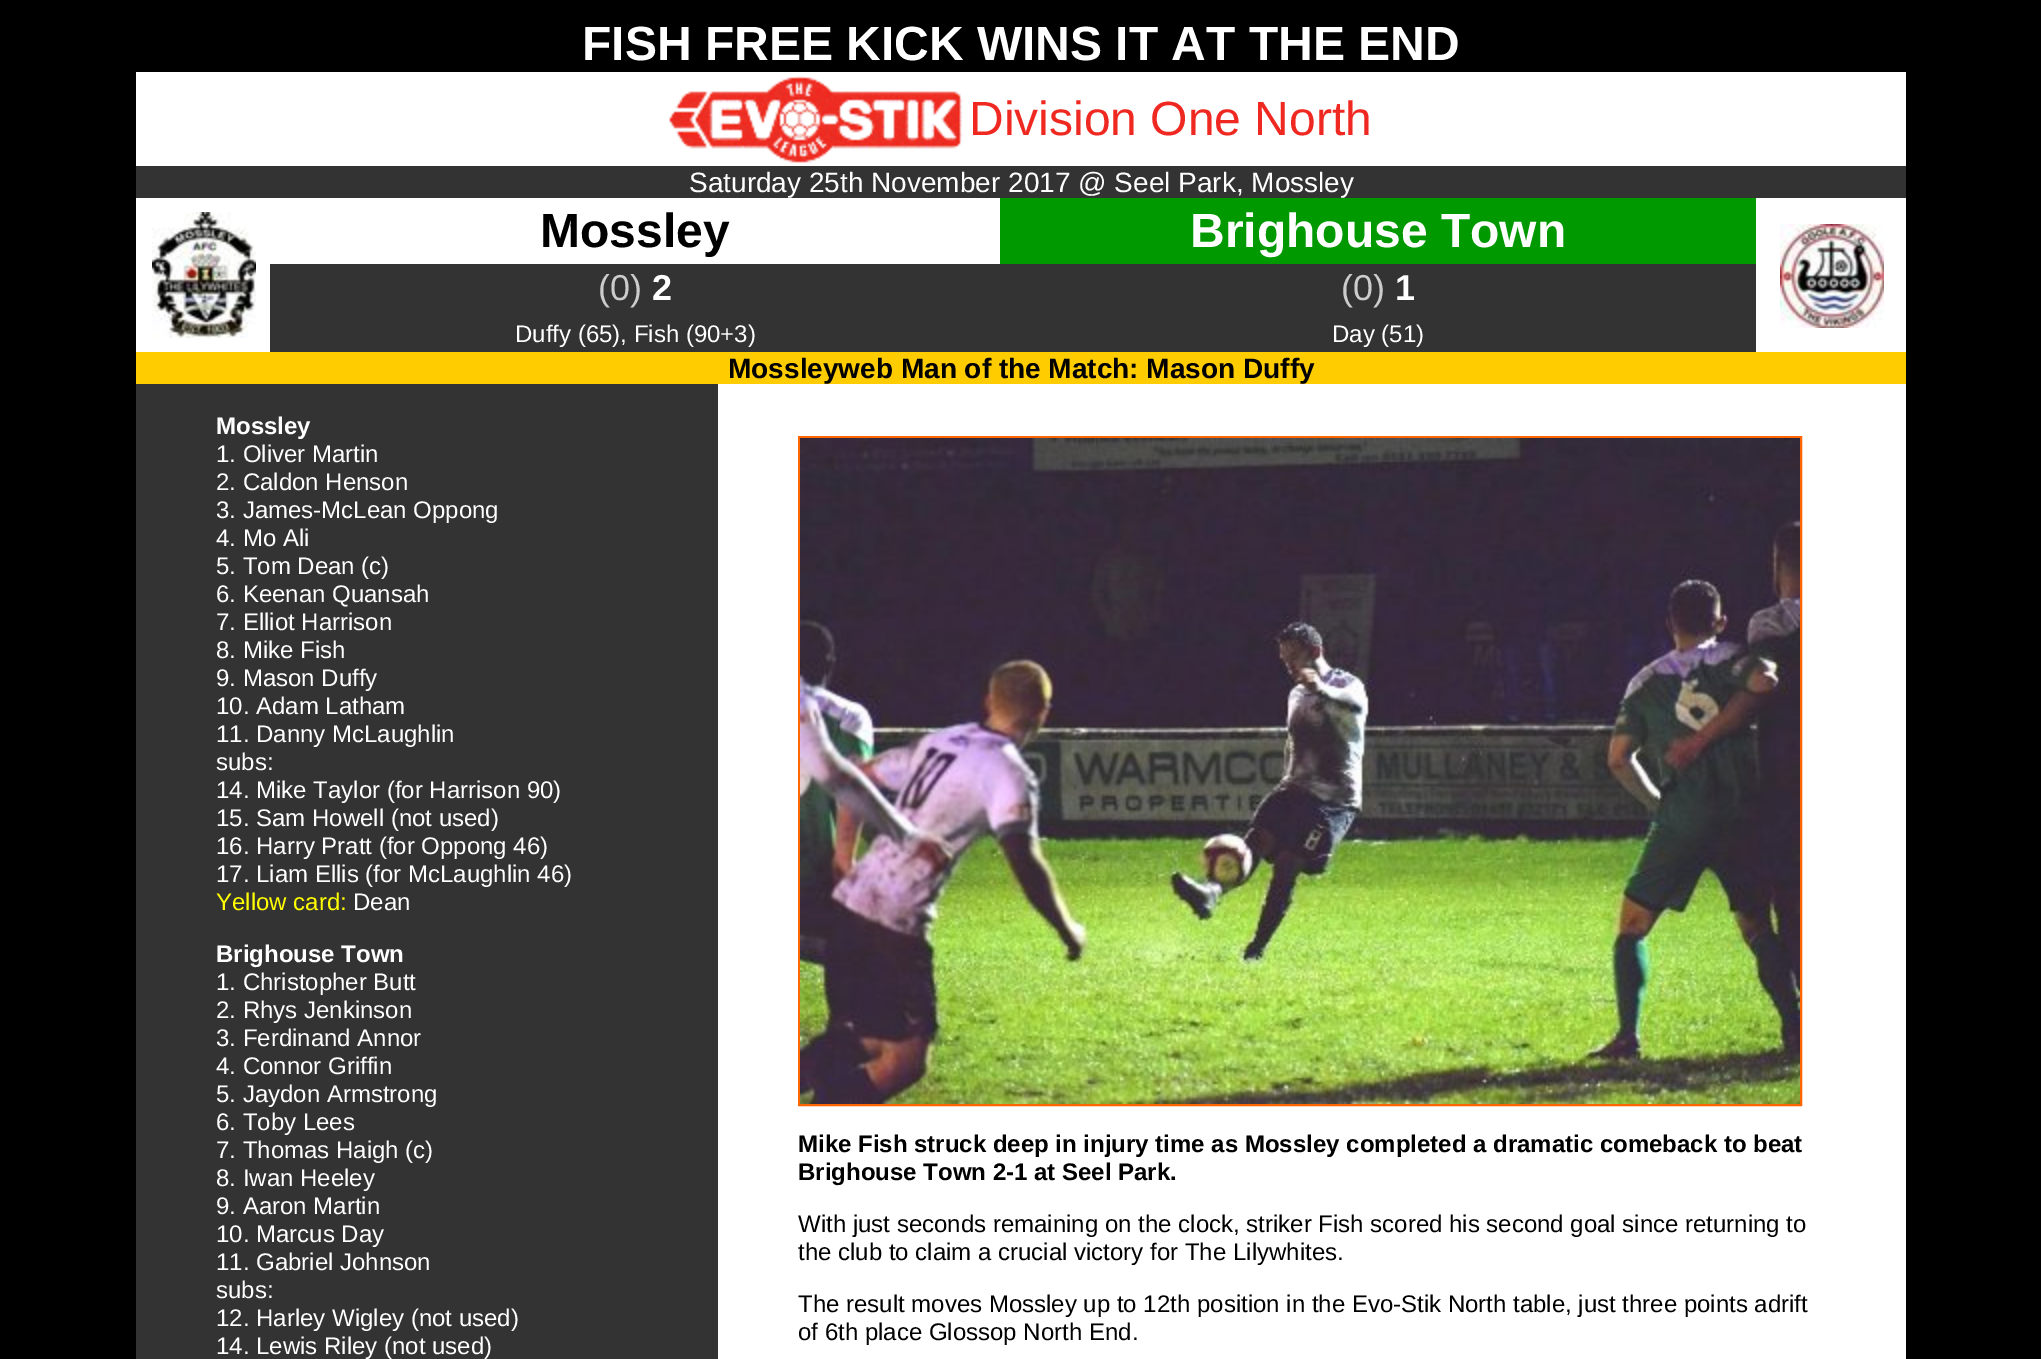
%!PS
<< /PageSize [2041 1359] >> setpagedevice
/lw/setlinewidth load def
/co { dup -16 bitshift 255 div exch dup -8 bitshift 255 and 255 div exch 255 and 255 div setrgbcolor } def
/fn { [ exch dup neg 0 0 3 -1 roll 0 0 ] selectfont } def
/tx { co fn moveto show } def
/bx { co rectfill } def
/im { 5 dict begin { /h /w /y /x /name } { exch def } forall
  gsave x y translate w h scale
  w h 8 [w 0 0 h 0 0] name (r) file false 3 colorimage grestore end } def
0 1359 translate 1 -1 scale
4 setmiterlimit
0 0 2041 1359 16#000000 bx
136 72 1770 94 16#FFFFFF bx
(media/1.raw) 668 76 295 88 im
136 166 1770 32 16#333333 bx
136 198 1770 154 16#FFFFFF bx
(media/2.raw) 152 212 104 126 im
1000 198 756 66 16#009900 bx
(media/3.raw) 1780 224 104 104 im
270 264 1486 52 16#333333 bx
270 316 1486 36 16#333333 bx
136 352 1770 32 16#FFCC00 bx
136 384 582 975 16#333333 bx
718 384 1188 975 16#FFFFFF bx
16#FF6600 co
2 lw
799 437 1002 668 rectstroke
(media/4.raw) 800 438 1000 666 im
(FISH FREE KICK WINS IT AT THE END) 582 60 /LiberationSans-Bold 48 16#FFFFFF tx
(Division One North) 969 135 /LiberationSans-Regular 48 16#EF2921 tx
(Saturday 25th November 2017 @ Seel Park, Mossley) 689 192 /LiberationSans-Regular 28 16#FFFFFF tx
(Mossley) 540 247 /LiberationSans-Bold 48 16#000000 tx
(Brighouse Town) 1190 247 /LiberationSans-Bold 48 16#FFFFFF tx
(\(0\)) 598 300 /LiberationSans-Regular 36 16#CCCCCC tx
(2) 652 300 /LiberationSans-Bold 36 16#FFFFFF tx
(\(0\)) 1341 300 /LiberationSans-Regular 36 16#CCCCCC tx
(1) 1395 300 /LiberationSans-Bold 36 16#FFFFFF tx
(Duffy \(65\), Fish \(90+3\)) 515 342 /LiberationSans-Regular 24 16#FFFFFF tx
(Day \(51\)) 1332 342 /LiberationSans-Regular 24 16#FFFFFF tx
(Mossleyweb Man of the Match: Mason Duffy) 728 378 /LiberationSans-Bold 28 16#000000 tx
(Mossley) 216 434 /LiberationSans-Bold 24 16#FFFFFF tx
(1. Oliver Martin) 216 462 /LiberationSans-Regular 24 16#FFFFFF tx
(2. Caldon Henson) 216 490 /LiberationSans-Regular 24 16#FFFFFF tx
(3. James-McLean Oppong) 216 518 /LiberationSans-Regular 24 16#FFFFFF tx
(4. Mo Ali) 216 546 /LiberationSans-Regular 24 16#FFFFFF tx
(5. Tom Dean \(c\)) 216 574 /LiberationSans-Regular 24 16#FFFFFF tx
(6. Keenan Quansah) 216 602 /LiberationSans-Regular 24 16#FFFFFF tx
(7. Elliot Harrison) 216 630 /LiberationSans-Regular 24 16#FFFFFF tx
(8. Mike Fish) 216 658 /LiberationSans-Regular 24 16#FFFFFF tx
(9. Mason Duffy) 216 686 /LiberationSans-Regular 24 16#FFFFFF tx
(10. Adam Latham) 216 714 /LiberationSans-Regular 24 16#FFFFFF tx
(11. Danny McLaughlin) 216 742 /LiberationSans-Regular 24 16#FFFFFF tx
(subs:) 216 770 /LiberationSans-Regular 24 16#FFFFFF tx
(14. Mike Taylor \(for Harrison 90\)) 216 798 /LiberationSans-Regular 24 16#FFFFFF tx
(15. Sam Howell \(not used\)) 216 826 /LiberationSans-Regular 24 16#FFFFFF tx
(16. Harry Pratt \(for Oppong 46\)) 216 854 /LiberationSans-Regular 24 16#FFFFFF tx
(17. Liam Ellis \(for McLaughlin 46\)) 216 882 /LiberationSans-Regular 24 16#FFFFFF tx
(Yellow card:) 216 910 /LiberationSans-Regular 24 16#FFFF00 tx
(Dean) 353 910 /LiberationSans-Regular 24 16#FFFFFF tx
(Brighouse Town) 216 962 /LiberationSans-Bold 24 16#FFFFFF tx
(1. Christopher Butt) 216 990 /LiberationSans-Regular 24 16#FFFFFF tx
(2. Rhys Jenkinson) 216 1018 /LiberationSans-Regular 24 16#FFFFFF tx
(3. Ferdinand Annor) 216 1046 /LiberationSans-Regular 24 16#FFFFFF tx
(4. Connor Griffin) 216 1074 /LiberationSans-Regular 24 16#FFFFFF tx
(5. Jaydon Armstrong) 216 1102 /LiberationSans-Regular 24 16#FFFFFF tx
(6. Toby Lees) 216 1130 /LiberationSans-Regular 24 16#FFFFFF tx
(7. Thomas Haigh \(c\)) 216 1158 /LiberationSans-Regular 24 16#FFFFFF tx
(8. Iwan Heeley) 216 1186 /LiberationSans-Regular 24 16#FFFFFF tx
(9. Aaron Martin) 216 1214 /LiberationSans-Regular 24 16#FFFFFF tx
(10. Marcus Day) 216 1242 /LiberationSans-Regular 24 16#FFFFFF tx
(11. Gabriel Johnson) 216 1270 /LiberationSans-Regular 24 16#FFFFFF tx
(subs:) 216 1298 /LiberationSans-Regular 24 16#FFFFFF tx
(12. Harley Wigley \(not used\)) 216 1326 /LiberationSans-Regular 24 16#FFFFFF tx
(14. Lewis Riley \(not used\)) 216 1354 /LiberationSans-Regular 24 16#FFFFFF tx
(Mike Fish struck deep in injury time as Mossley completed a dramatic comeback to beat) 798 1152 /LiberationSans-Bold 24 16#000000 tx
(Brighouse Town 2-1 at Seel Park.) 798 1180 /LiberationSans-Bold 24 16#000000 tx
(With just seconds remaining on the clock, striker Fish scored his second goal since returning to) 798 1232 /LiberationSans-Regular 24 16#000000 tx
(the club to claim a crucial victory for The Lilywhites.) 798 1260 /LiberationSans-Regular 24 16#000000 tx
(The result moves Mossley up to 12th position in the Evo-Stik North table, just three points adrift) 798 1312 /LiberationSans-Regular 24 16#000000 tx
(of 6th place Glossop North End.) 798 1340 /LiberationSans-Regular 24 16#000000 tx
showpage
